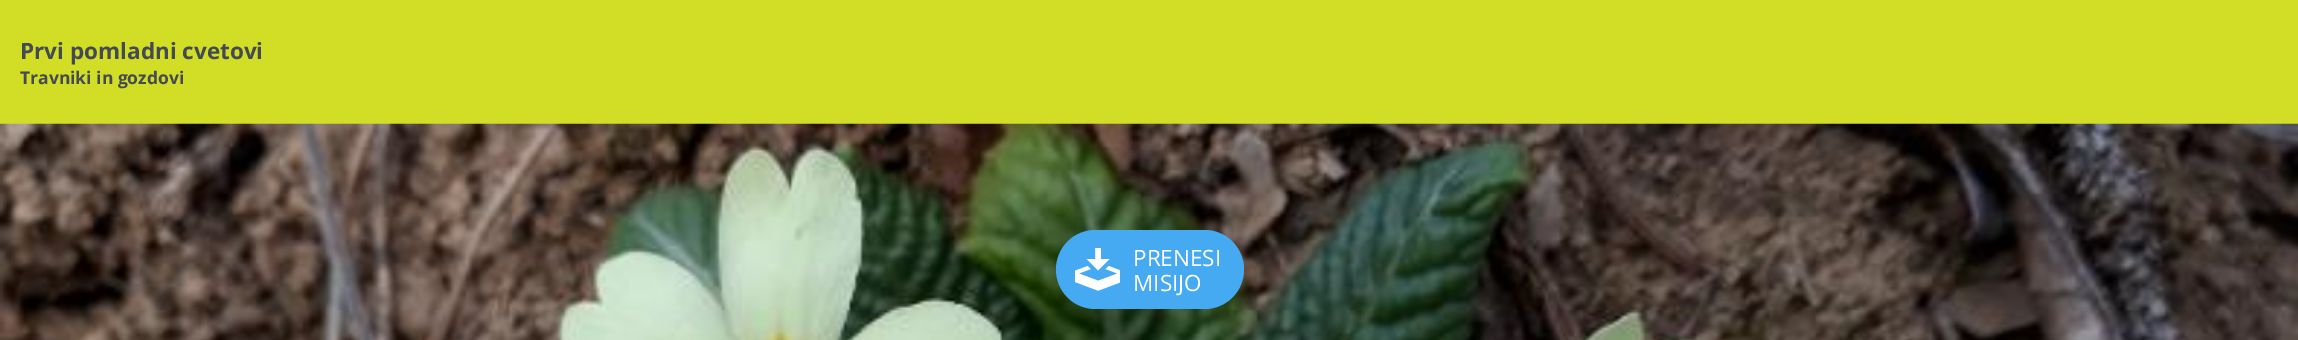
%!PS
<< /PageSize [2298 340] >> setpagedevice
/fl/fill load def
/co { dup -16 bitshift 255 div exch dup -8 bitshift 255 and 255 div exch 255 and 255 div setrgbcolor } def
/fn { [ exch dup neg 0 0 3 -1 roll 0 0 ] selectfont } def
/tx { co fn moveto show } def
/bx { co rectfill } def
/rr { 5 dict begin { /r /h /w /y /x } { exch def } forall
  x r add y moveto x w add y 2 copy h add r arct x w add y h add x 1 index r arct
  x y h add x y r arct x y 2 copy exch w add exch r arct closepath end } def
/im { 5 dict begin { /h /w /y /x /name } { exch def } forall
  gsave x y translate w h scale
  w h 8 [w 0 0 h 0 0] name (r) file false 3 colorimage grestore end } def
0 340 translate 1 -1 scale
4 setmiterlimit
0 0 2298 340 16#D2DE26 bx
(media/1.raw) 0 123 2298 217 im
16#45AAF2 co
1056 230 188 79 39.5 rr fl
(media/2.raw) 1075 248 45 43 im
(Prvi pomladni cvetovi) 20 59 /OpenSans-Bold 22.5 16#434A53 tx
(Travniki in gozdovi) 20 84 /OpenSans-Bold 17.5 16#434A53 tx
(PRENESI) 1133 266 /OpenSans-Regular 22.5 16#FFFFFF tx
(MISIJO) 1133 291 /OpenSans-Regular 22.5 16#FFFFFF tx
showpage
